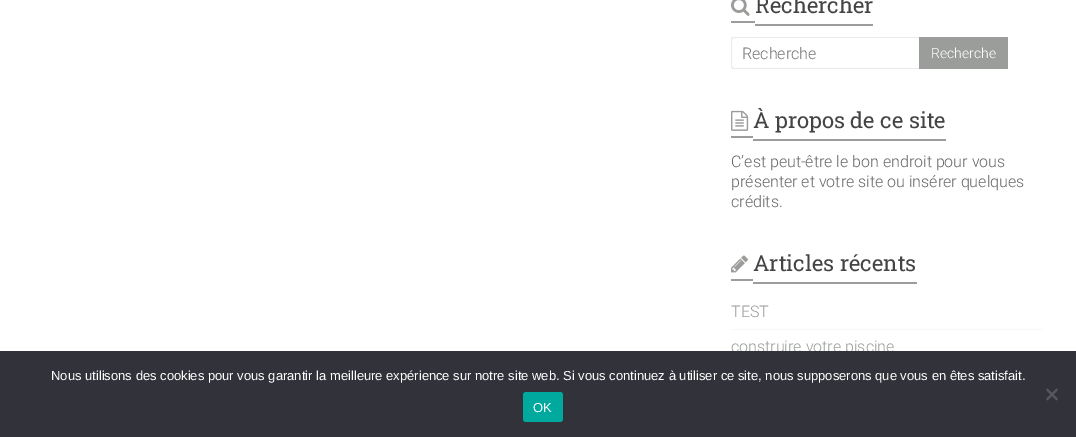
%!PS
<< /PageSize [1076 437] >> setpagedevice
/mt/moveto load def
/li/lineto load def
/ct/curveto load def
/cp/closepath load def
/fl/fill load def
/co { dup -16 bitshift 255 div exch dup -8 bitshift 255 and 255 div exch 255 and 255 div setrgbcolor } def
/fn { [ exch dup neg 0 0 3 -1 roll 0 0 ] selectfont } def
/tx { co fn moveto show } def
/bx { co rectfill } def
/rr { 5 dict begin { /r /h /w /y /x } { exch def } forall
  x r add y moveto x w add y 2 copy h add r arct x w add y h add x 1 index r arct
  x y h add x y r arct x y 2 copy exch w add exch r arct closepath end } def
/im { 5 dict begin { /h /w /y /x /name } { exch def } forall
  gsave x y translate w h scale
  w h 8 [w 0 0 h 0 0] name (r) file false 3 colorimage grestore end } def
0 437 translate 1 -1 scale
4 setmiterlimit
0 0 1076 437 16#FFFFFF bx
(media/1.raw) 731 0 19 16 im
731 21 24 2 16#9A9D99 bx
755 24 118 2 16#9A9D99 bx
16#EAEAEA co
734 37 mt 919 37 li 919 69 li 734 69 li 732 69 731 68 731 66 ct 731 40 li 731 38 732 37 734 37 ct cp 734 38 mt 919 38 li 919 68 li 734 68 li 733 68 732 67 732 66 ct 732 40 li 732 39 733 38 734 38 ct cp eofill
919 37 89 32 16#9A9D99 bx
(media/2.raw) 731 110 18 21 im
731 136 22 2 16#9A9D99 bx
753 139 193 2 16#9A9D99 bx
(media/3.raw) 731 255 17 18 im
731 279 22 2 16#9A9D99 bx
753 282 164 2 16#9A9D99 bx
731 329 313 1 16#F8F8F8 bx
(Rechercher) 755 13 /RobotoSlab-Regular 22 16#444444 tx
(Recherche) 742 59 /Roboto-Light 16 16#757575 tx
(Recherche) 931 58 /Roboto-Light 14 16#FFFFFF tx
(À propos de ce site) 753 128 /RobotoSlab-Regular 22 16#444444 tx
(C’est peut-être le bon endroit pour vous) 731 167 /Roboto-Light 16 16#666666 tx
(présenter et votre site ou insérer quelques) 731 187 /Roboto-Light 16 16#666666 tx
(crédits.) 731 207 /Roboto-Light 16 16#666666 tx
(Articles récents) 753 271 /RobotoSlab-Regular 22 16#444444 tx
(TEST) 731 317 /Roboto-Light 16 16#9A9D99 tx
(construire votre piscine) 731 352 /Roboto-Light 16 16#9A9D99 tx
0 351 1076 86 16#32323A bx
(Nous utilisons des cookies pour vous garantir la meilleure expérience sur notre site web. Si vous continuez à utiliser ce site, nous supposerons que vous en êtes satisfait.) 51 380 /LiberationSans-Regular 13 16#FFFFFF tx
16#59595D co
1056.5 388.5 mt 1058 390 li 1047.5 400.5 li 1046 399 li cp fl
1046 390 mt 1047.5 388.5 li 1058 399 li 1056.5 400.5 li cp fl
16#00A99D co
523 392 40 30 3 rr fl
(OK) 533 412 /LiberationSans-Regular 13 16#FFFFFF tx
showpage
